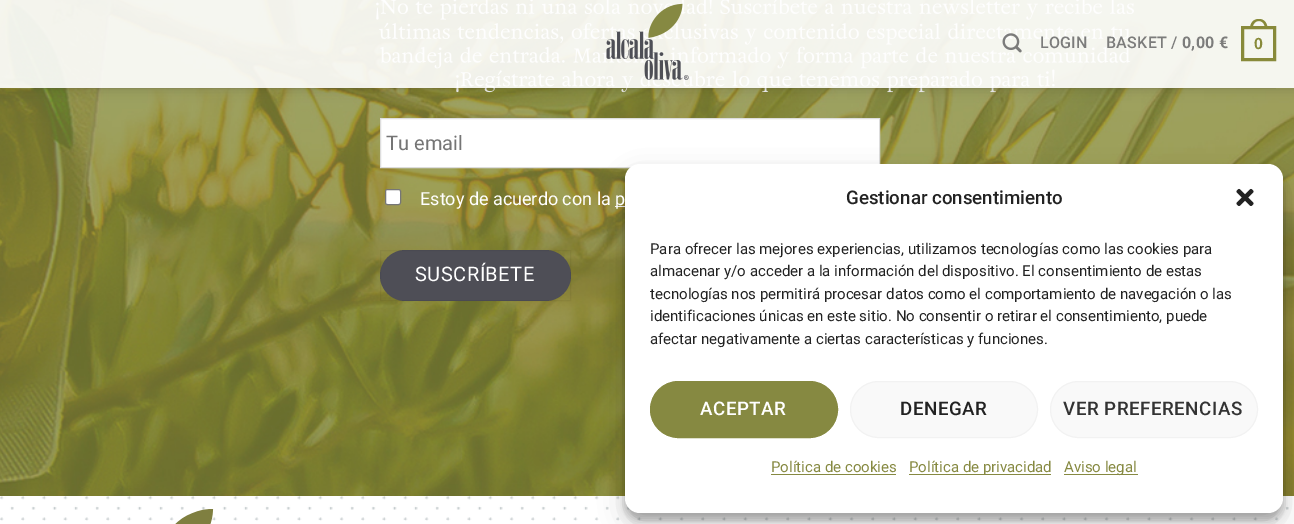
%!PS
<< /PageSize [1294 524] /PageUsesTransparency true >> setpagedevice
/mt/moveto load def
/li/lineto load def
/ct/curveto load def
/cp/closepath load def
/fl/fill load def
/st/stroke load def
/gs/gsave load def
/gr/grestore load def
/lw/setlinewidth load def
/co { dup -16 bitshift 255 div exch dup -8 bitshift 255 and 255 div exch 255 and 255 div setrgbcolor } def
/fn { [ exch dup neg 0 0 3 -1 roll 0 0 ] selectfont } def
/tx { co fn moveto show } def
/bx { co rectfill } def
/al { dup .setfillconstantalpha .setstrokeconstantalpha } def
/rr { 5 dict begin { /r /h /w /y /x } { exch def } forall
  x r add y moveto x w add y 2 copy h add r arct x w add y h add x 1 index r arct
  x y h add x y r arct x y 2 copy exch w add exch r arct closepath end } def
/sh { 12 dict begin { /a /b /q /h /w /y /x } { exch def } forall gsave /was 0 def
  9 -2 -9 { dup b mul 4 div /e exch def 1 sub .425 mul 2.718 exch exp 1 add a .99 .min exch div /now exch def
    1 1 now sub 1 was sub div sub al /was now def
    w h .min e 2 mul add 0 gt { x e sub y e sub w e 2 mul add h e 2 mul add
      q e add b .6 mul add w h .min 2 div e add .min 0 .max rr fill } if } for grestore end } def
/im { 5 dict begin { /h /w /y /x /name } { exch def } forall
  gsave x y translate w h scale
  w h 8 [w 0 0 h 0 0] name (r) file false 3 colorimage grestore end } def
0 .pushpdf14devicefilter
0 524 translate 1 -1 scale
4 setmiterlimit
0 0 1294 524 16#FFFFFF bx
(media/3.raw) 0 0 1294 496 im
(media/4.raw) 376 0 758 20 im
(media/5.raw) 379 22 752 23 im
(media/6.raw) 380 46 751 23 im
(media/7.raw) 456 69 599 24 im
gs
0 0 mt 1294 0 li 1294 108 li 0 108 li cp 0 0 mt 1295 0 li 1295 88 li 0 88 li cp eoclip newpath
16#000000 co
1 1 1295 88 0 6 .15 sh
gr
0.9 al
0 0 1294 88 16#FFFFFF bx
1 al
(media/1.raw) 606 3 83 77 im
(media/2.raw) 1002 33 20 20 im
16#888A3A co
3 lw
1242.5 27.5 32 32 rectstroke
1259 19 mt 1264.5 19 1267.5 23.5 1267.5 29 ct 1250 29 li 1250 23.5 1253 19 1259 19 ct cp 1259 21 mt 1263 21 1265 25 1265 29 ct 1252.5 29 li 1252.5 25 1254.5 21 1259 21 ct cp eofill
0.1 al
19 88 1257 1 16#534741 bx
1 al
16#FFFFFF co
380.5 118.5 mt 879.5 118.5 li 879.5 167.5 li 380.5 167.5 li cp gs fl gr
16#DDDDDD co
1 lw
st
16#FFFFFF co
385.5 189.5 15 15 2 rr gs fl gr
16#767676 co
st
615 206 10 1 16#FFFFFF bx
16#4E4E56 co
380 250 191 51 25.5 rr fl
0.05 al
16#000000 co
380.5 250.5 190 50 rectstroke
1 al
(media/8.raw) 0 496 1289 25 im
(media/9.raw) 175 509 39 15 im
625 171 658 349 15 4 .23 sh
625 176 658 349 15 12.5 .19 sh
16#FFFFFF co
625 164 658 349 15 rr fl
(media/10.raw) 1236 188 18 18 im
16#868941 co
650.5 381.5 187 56 28 rr gs fl gr
st
16#F9F9F9 co
850.5 381.5 187 56 28 rr gs fl gr
16#F2F2F2 co
st
16#F9F9F9 co
1050.5 381.5 207 56 28 rr gs fl gr
16#F2F2F2 co
st
771 474 125 1 16#868941 bx
909 474 142 1 16#868941 bx
1064 474 74 1 16#868941 bx
/Roboto-Medium 16 fn
16#7C7C7B co
1040 48 mt .25 0 (LOGIN) ashow
1106 48 mt .25 0 (BASKET) ashow
1171 48 mt .25 0 (/) ashow
/Roboto-Bold 16 fn
1182 48 mt .25 0 (0,00) ashow
1219 48 mt .25 0 (€) ashow
/LiberationSans-Bold 16 fn
16#888A3A co
1254 49 mt .25 0 (0) ashow
(Tu email) 386 150 /Roboto-Regular 20 16#757575 tx
(Estoy de acuerdo con la) 420 205 /Roboto-Regular 18 16#FFFFFF tx
(p) 615 205 /Roboto-Regular 18 16#FFFFFF tx
/Roboto-Regular 20 fn
415 281 mt .5 0 (SUSCRÍBETE) ashow
(Gestionar consentimiento) 846 204 /Roboto-Medium 18.75 16#222222 tx
(Para ofrecer las mejores experiencias, utilizamos tecnologías como las cookies para) 650 254 /Roboto-Regular 15 16#222222 tx
(almacenar y/o acceder a la información del dispositivo. El consentimiento de estas) 650 276 /Roboto-Regular 15 16#222222 tx
(tecnologías nos permitirá procesar datos como el comportamiento de navegación o las) 650 299 /Roboto-Regular 15 16#222222 tx
(identificaciones únicas en este sitio. No consentir o retirar el consentimiento, puede) 650 321 /Roboto-Regular 15 16#222222 tx
(afectar negativamente a ciertas características y funciones.) 650 344 /Roboto-Regular 15 16#222222 tx
/Roboto-Medium 18.75 fn
16#FFFFFF co
700 415 mt .5 0 (ACEPTAR) ashow
16#222222 co
900 415 mt .5 0 (DENEGAR) ashow
16#333333 co
1063 415 mt .5 0 (VER PREFERENCIAS) ashow
(Política de cookies) 771 472 /Roboto-Regular 15 16#868941 tx
(Política de privacidad) 909 472 /Roboto-Regular 15 16#868941 tx
(Aviso legal) 1064 472 /Roboto-Regular 15 16#868941 tx
.poppdf14devicefilter showpage
